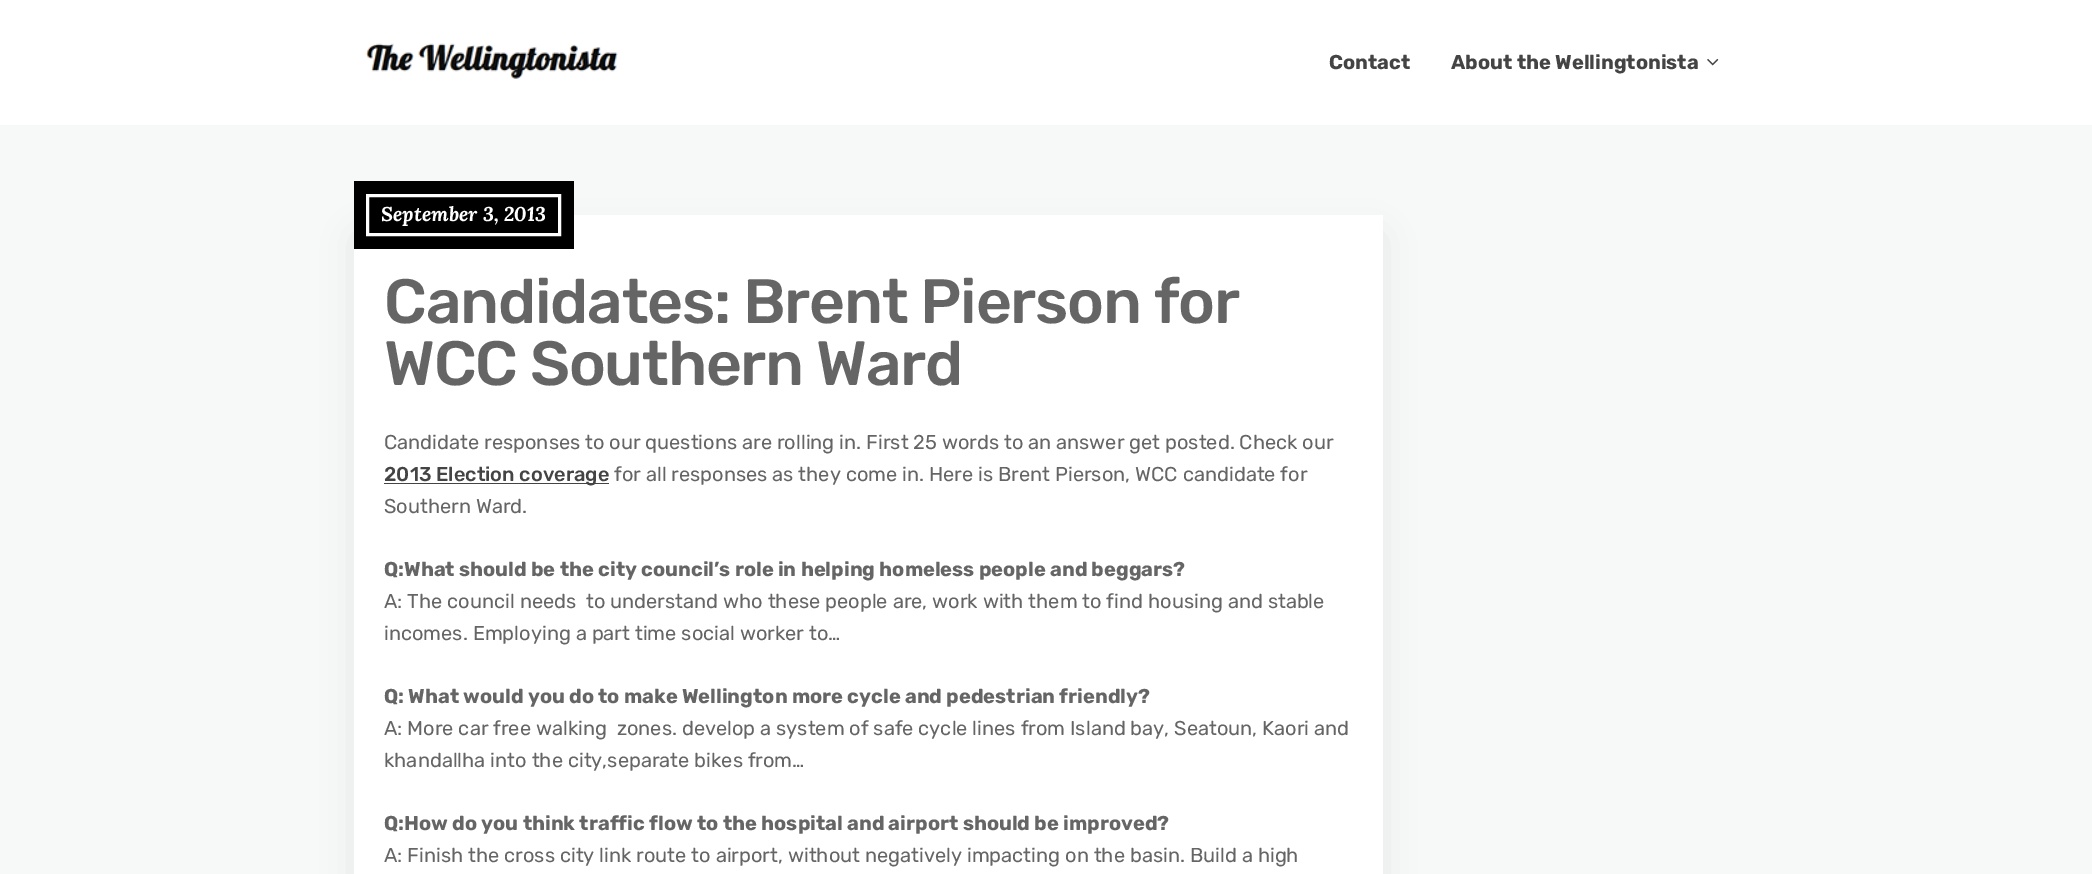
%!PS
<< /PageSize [2092 874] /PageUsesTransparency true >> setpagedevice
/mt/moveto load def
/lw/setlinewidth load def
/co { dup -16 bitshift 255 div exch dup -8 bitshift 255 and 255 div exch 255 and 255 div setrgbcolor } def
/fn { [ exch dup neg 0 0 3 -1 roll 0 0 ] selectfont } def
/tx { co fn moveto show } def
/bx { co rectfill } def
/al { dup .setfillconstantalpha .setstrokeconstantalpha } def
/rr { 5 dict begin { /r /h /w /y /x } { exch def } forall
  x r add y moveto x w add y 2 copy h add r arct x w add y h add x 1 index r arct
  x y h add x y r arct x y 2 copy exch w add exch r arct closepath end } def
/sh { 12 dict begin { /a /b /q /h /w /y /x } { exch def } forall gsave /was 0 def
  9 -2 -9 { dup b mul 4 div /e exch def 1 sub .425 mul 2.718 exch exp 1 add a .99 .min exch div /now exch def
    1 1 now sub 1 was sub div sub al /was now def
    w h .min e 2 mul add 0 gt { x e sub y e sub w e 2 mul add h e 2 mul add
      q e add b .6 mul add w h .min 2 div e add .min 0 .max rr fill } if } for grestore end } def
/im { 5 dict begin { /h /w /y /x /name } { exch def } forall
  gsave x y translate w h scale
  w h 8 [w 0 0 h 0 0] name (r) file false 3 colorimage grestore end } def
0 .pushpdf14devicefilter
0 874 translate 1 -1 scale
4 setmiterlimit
0 0 2092 874 16#F7F8F8 bx
0 0 2092 125 16#FFFFFF bx
(media/1.raw) 366 43 252 36 im
(media/2.raw) 1707 58 12 8 im
16#0E1114 co
359 238 1019 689 0 17.5 .1 sh
354 215 1029 659 16#FFFFFF bx
354 181 220 68 16#000000 bx
16#FFFFFF co
3 lw
367.5 195.5 192 39 rectstroke
384 483 225 1 16#444444 bx
(Contact) 1329 69 /Rubik-Bold 20 16#444444 tx
(About the Wellingtonista) 1451 69 /Rubik-Bold 20 16#444444 tx
(September 3, 2013) 381 221 /Lora-BoldItalic 20 16#FFFFFF tx
/Rubik-Medium 62.5 fn
16#656565 co
384 323 mt -1.25 0 (Candidates: Brent Pierson for) ashow
384 385 mt -1.25 0 (WCC Southern Ward) ashow
(Candidate responses to our questions are rolling in. First 25 words to an answer get posted. Check our) 384 449 /Rubik-Regular 20 16#656565 tx
(2013 Election coverage) 384 481 /Rubik-Medium 20 16#444444 tx
(for all responses as they come in. Here is Brent Pierson, WCC candidate for) 614 481 /Rubik-Regular 20 16#656565 tx
(Southern Ward.) 384 513 /Rubik-Regular 20 16#656565 tx
(Q:What should be the city council’s role in helping homeless people and beggars?) 384 576 /Rubik-Bold 20 16#656565 tx
(A: The council needs  to understand who these people are, work with them to find housing and stable) 384 608 /Rubik-Regular 20 16#656565 tx
(incomes. Employing a part time social worker to…) 384 640 /Rubik-Regular 20 16#656565 tx
(Q: What would you do to make Wellington more cycle and pedestrian friendly?) 384 703 /Rubik-Bold 20 16#656565 tx
(A: More car free walking  zones. develop a system of safe cycle lines from Island bay, Seatoun, Kaori and) 384 735 /Rubik-Regular 20 16#656565 tx
(khandallha into the city,separate bikes from…) 384 767 /Rubik-Regular 20 16#656565 tx
(Q:How do you think traffic flow to the hospital and airport should be improved?) 384 830 /Rubik-Bold 20 16#656565 tx
(A: Finish the cross city link route to airport, without negatively impacting on the basin. Build a high) 384 862 /Rubik-Regular 20 16#656565 tx
.poppdf14devicefilter showpage
